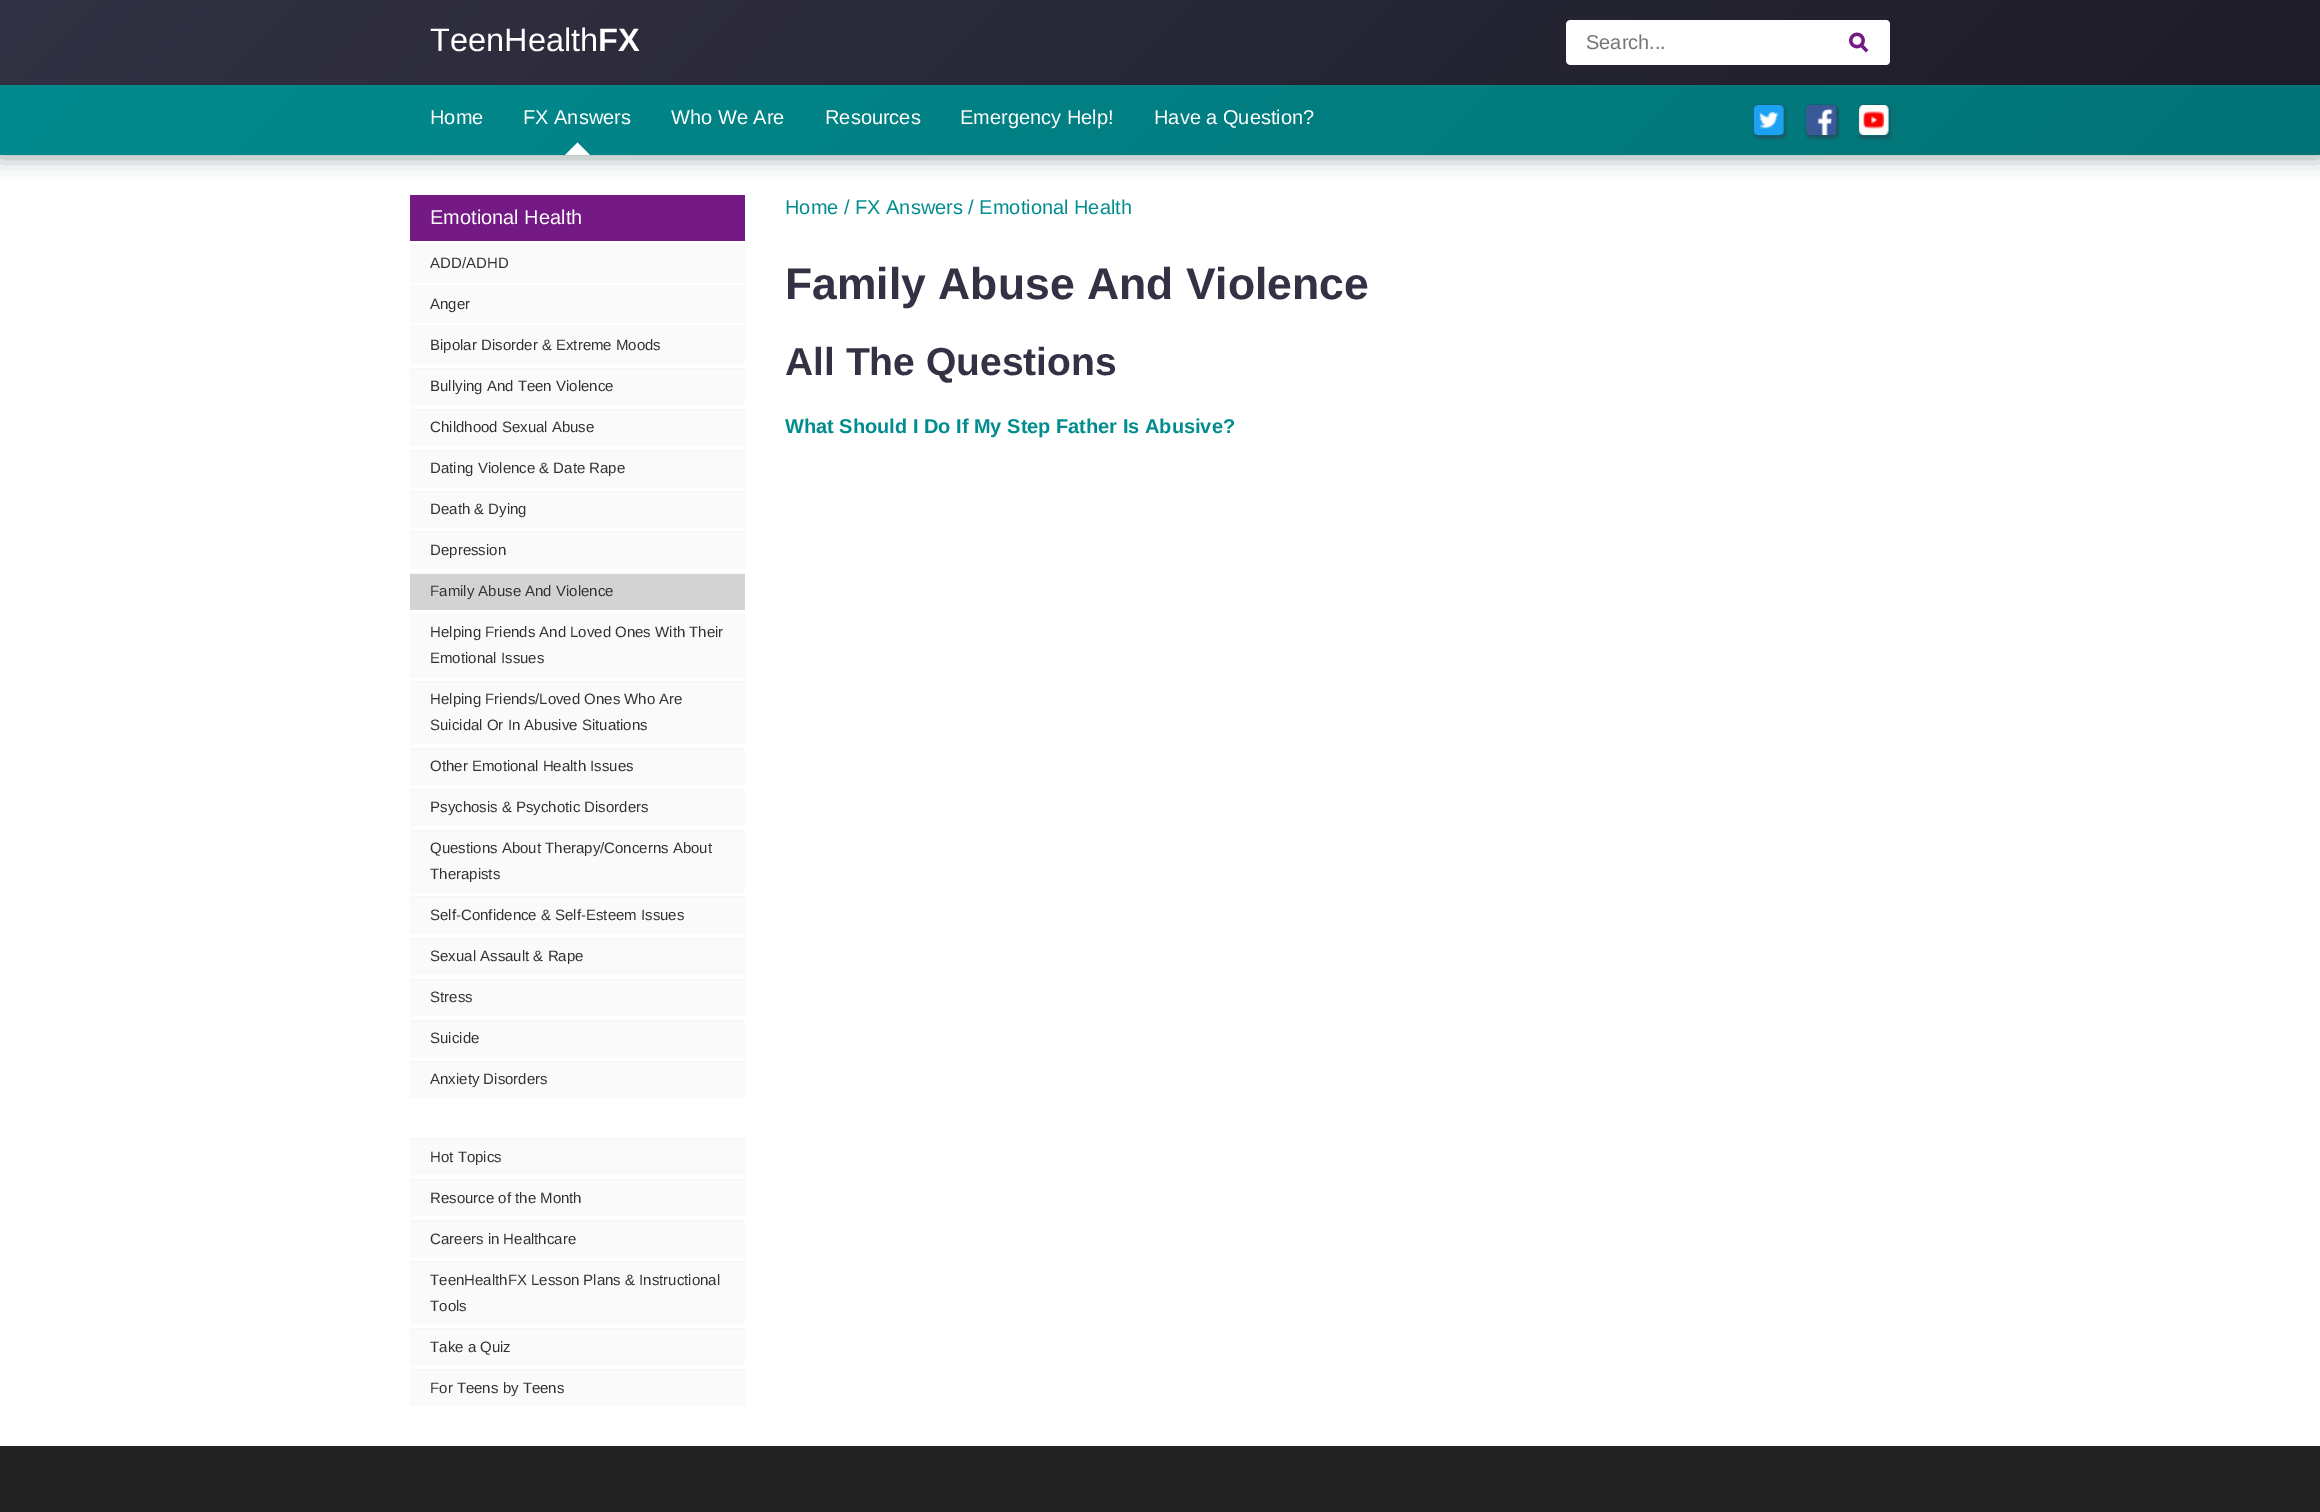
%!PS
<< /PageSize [2320 1512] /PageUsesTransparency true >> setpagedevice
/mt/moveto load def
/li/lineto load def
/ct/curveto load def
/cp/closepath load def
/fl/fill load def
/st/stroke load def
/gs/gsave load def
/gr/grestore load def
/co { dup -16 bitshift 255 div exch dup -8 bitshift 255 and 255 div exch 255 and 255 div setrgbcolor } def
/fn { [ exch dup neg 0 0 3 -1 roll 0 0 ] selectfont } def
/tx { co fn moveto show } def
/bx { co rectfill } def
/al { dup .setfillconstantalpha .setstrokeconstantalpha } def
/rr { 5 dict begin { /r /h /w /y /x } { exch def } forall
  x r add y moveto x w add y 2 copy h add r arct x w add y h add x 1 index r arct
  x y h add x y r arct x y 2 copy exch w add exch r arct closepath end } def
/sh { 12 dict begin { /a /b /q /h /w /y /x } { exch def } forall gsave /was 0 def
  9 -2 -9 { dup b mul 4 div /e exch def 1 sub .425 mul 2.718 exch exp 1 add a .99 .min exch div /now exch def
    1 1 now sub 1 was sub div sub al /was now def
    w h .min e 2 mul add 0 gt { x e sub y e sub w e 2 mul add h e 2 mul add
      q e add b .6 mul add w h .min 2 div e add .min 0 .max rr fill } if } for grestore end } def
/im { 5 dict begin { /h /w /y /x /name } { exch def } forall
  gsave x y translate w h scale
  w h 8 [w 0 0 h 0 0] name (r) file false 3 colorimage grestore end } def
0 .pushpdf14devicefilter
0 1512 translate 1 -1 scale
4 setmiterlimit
0 0 2320 1512 16#FFFFFF bx
16#00272A co
0 3 2320 155 0 10 .4 sh
gs 0 85 mt 2320 85 li 2320 155 li 0 155 li cp clip newpath
<< /ShadingType 2 /ColorSpace /DeviceRGB /Coords [541 -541 1779 696] /Extend [true true] /Function << /FunctionType 2 /Domain [0 1] /C0 [.004 .549 .561] /C1 [.004 .451 .463] /N 1 >> >> shfill gr
gs 0 0 mt 2320 0 li 2320 85 li 0 85 li cp clip newpath
<< /ShadingType 2 /ColorSpace /DeviceRGB /Coords [559 -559 1761 644] /Extend [true true] /Function << /FunctionType 2 /Domain [0 1] /C0 [.2 .196 .267] /C1 [.114 .11 .153] /N 1 >> >> shfill gr
gs
1566 20 324 45 4 rr clip newpath
16#FFFFFF co
1571 20 mt 1886 20 li 1888 20 1890 22 1890 24 ct 1890 61 li 1890 63 1888 65 1886 65 ct 1571 65 li 1568 65 1566 63 1566 60 ct 1566 25 li 1566 22 1568 20 1571 20 ct cp fl
gr
(media/1.raw) 1849 32 20 21 im
16#FFFFFF co
590 155 mt 565 155 li 577.5 142.5 li cp fl
gs
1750 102 mt 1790 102 li 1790 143 li 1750 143 li cp 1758 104 mt 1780 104 li 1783 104 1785 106 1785 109 ct 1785 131 li 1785 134 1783 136 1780 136 ct 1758 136 li 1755 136 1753 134 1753 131 ct 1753 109 li 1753 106 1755 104 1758 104 ct cp eoclip newpath
16#333244 co
1754 106 32 33 5 1 .4 sh
gr
0.2 al
16#333244 co
1753.5 104.5 31 31 4.5 rr st
1 al
(media/2.raw) 1753 105 31 30 im
1806 106 33 33 5 1 .4 sh
0.2 al
1805.5 104.5 32 31 4.5 rr st
1 al
(media/3.raw) 1806 105 30 30 im
gs
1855 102 mt 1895 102 li 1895 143 li 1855 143 li cp 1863 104 mt 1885 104 li 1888 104 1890 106 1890 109 ct 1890 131 li 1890 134 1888 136 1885 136 ct 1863 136 li 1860 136 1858 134 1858 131 ct 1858 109 li 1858 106 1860 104 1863 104 ct cp eoclip newpath
1859 106 32 33 5 1 .4 sh
gr
0.2 al
1858.5 104.5 31 31 4.5 rr st
1 al
(media/4.raw) 1858 105 31 30 im
410 195 335 46 16#751A84 bx
410 246 335 37 16#FAFAFA bx
410 245 335 1 16#F5F5F5 bx
410 287 335 36 16#FAFAFA bx
410 286 335 1 16#F5F5F5 bx
410 327 335 37 16#FAFAFA bx
410 326 335 1 16#F5F5F5 bx
410 369 335 36 16#FAFAFA bx
410 368 335 1 16#F5F5F5 bx
410 410 335 36 16#FAFAFA bx
410 409 335 1 16#F5F5F5 bx
410 451 335 37 16#FAFAFA bx
410 450 335 1 16#F5F5F5 bx
410 492 335 36 16#FAFAFA bx
410 491 335 1 16#F5F5F5 bx
410 532 335 37 16#FAFAFA bx
410 531 335 1 16#F5F5F5 bx
410 574 335 36 16#D3D3D3 bx
410 573 335 1 16#F5F5F5 bx
410 615 335 63 16#FAFAFA bx
410 614 335 1 16#F5F5F5 bx
410 682 335 62 16#FAFAFA bx
410 681 335 1 16#F5F5F5 bx
410 749 335 36 16#FAFAFA bx
410 748 335 1 16#F5F5F5 bx
410 790 335 36 16#FAFAFA bx
410 789 335 1 16#F5F5F5 bx
410 831 335 62 16#FAFAFA bx
410 830 335 1 16#F5F5F5 bx
410 897 335 37 16#FAFAFA bx
410 896 335 1 16#F5F5F5 bx
410 939 335 36 16#FAFAFA bx
410 938 335 1 16#F5F5F5 bx
410 980 335 36 16#FAFAFA bx
410 979 335 1 16#F5F5F5 bx
410 1021 335 37 16#FAFAFA bx
410 1020 335 1 16#F5F5F5 bx
410 1062 335 36 16#FAFAFA bx
410 1061 335 1 16#F5F5F5 bx
410 1139 335 36 16#FAFAFA bx
410 1138 335 1 16#F5F5F5 bx
410 1180 335 36 16#FAFAFA bx
410 1179 335 1 16#F5F5F5 bx
410 1221 335 37 16#FAFAFA bx
410 1220 335 1 16#F5F5F5 bx
410 1262 335 62 16#FAFAFA bx
410 1261 335 1 16#F5F5F5 bx
410 1329 335 36 16#FAFAFA bx
410 1328 335 1 16#F5F5F5 bx
410 1370 335 36 16#FAFAFA bx
410 1369 335 1 16#F5F5F5 bx
0 1446 2320 66 16#232323 bx
(TeenHealth) 430 51 /LiberationSans-Regular 32.5 16#FFFFFF tx
(FX) 598 51 /LiberationSans-Bold 32.5 16#FFFFFF tx
(Search...) 1586 49 /LiberationSans-Regular 20 16#757575 tx
(Home) 430 124 /LiberationSans-Regular 20 16#FFFFFF tx
(FX Answers) 523 124 /LiberationSans-Regular 20 16#FFFFFF tx
(Who We Are) 671 124 /LiberationSans-Regular 20 16#FFFFFF tx
(Resources) 825 124 /LiberationSans-Regular 20 16#FFFFFF tx
(Emergency Help!) 960 124 /LiberationSans-Regular 20 16#FFFFFF tx
(Have a Question?) 1154 124 /LiberationSans-Regular 20 16#FFFFFF tx
(Emotional Health) 430 224 /LiberationSans-Regular 20 16#FFFFFF tx
(ADD/ADHD) 430 268 /LiberationSans-Regular 15 16#333333 tx
(Anger) 430 309 /LiberationSans-Regular 15 16#333333 tx
(Bipolar Disorder & Extreme Moods) 430 350 /LiberationSans-Regular 15 16#333333 tx
(Bullying And Teen Violence) 430 391 /LiberationSans-Regular 15 16#333333 tx
(Childhood Sexual Abuse) 430 432 /LiberationSans-Regular 15 16#333333 tx
(Dating Violence & Date Rape) 430 473 /LiberationSans-Regular 15 16#333333 tx
(Death & Dying) 430 514 /LiberationSans-Regular 15 16#333333 tx
(Depression) 430 555 /LiberationSans-Regular 15 16#333333 tx
(Family Abuse And Violence) 430 596 /LiberationSans-Regular 15 16#333333 tx
(Helping Friends And Loved Ones With Their) 430 637 /LiberationSans-Regular 15 16#333333 tx
(Emotional Issues) 430 663 /LiberationSans-Regular 15 16#333333 tx
(Helping Friends/Loved Ones Who Are) 430 704 /LiberationSans-Regular 15 16#333333 tx
(Suicidal Or In Abusive Situations) 430 730 /LiberationSans-Regular 15 16#333333 tx
(Other Emotional Health Issues) 430 771 /LiberationSans-Regular 15 16#333333 tx
(Psychosis & Psychotic Disorders) 430 812 /LiberationSans-Regular 15 16#333333 tx
(Questions About Therapy/Concerns About) 430 853 /LiberationSans-Regular 15 16#333333 tx
(Therapists) 430 879 /LiberationSans-Regular 15 16#333333 tx
(Self-Confidence & Self-Esteem Issues) 430 920 /LiberationSans-Regular 15 16#333333 tx
(Sexual Assault & Rape) 430 961 /LiberationSans-Regular 15 16#333333 tx
(Stress) 430 1002 /LiberationSans-Regular 15 16#333333 tx
(Suicide) 430 1043 /LiberationSans-Regular 15 16#333333 tx
(Anxiety Disorders) 430 1084 /LiberationSans-Regular 15 16#333333 tx
(Hot Topics) 430 1162 /LiberationSans-Regular 15 16#333333 tx
(Resource of the Month) 430 1203 /LiberationSans-Regular 15 16#333333 tx
(Careers in Healthcare) 430 1244 /LiberationSans-Regular 15 16#333333 tx
(TeenHealthFX Lesson Plans & Instructional) 430 1285 /LiberationSans-Regular 15 16#333333 tx
(Tools) 430 1311 /LiberationSans-Regular 15 16#333333 tx
(Take a Quiz) 430 1352 /LiberationSans-Regular 15 16#333333 tx
(For Teens by Teens) 430 1393 /LiberationSans-Regular 15 16#333333 tx
(Home / FX Answers / Emotional Health) 785 214 /LiberationSans-Regular 20 16#018C8F tx
(Family Abuse And Violence) 785 299 /LiberationSans-Bold 44.5 16#333244 tx
(All The Questions) 785 375 /LiberationSans-Bold 39 16#333244 tx
(What Should I Do If My Step Father Is Abusive?) 785 433 /LiberationSans-Bold 20 16#018C8F tx
.poppdf14devicefilter showpage
